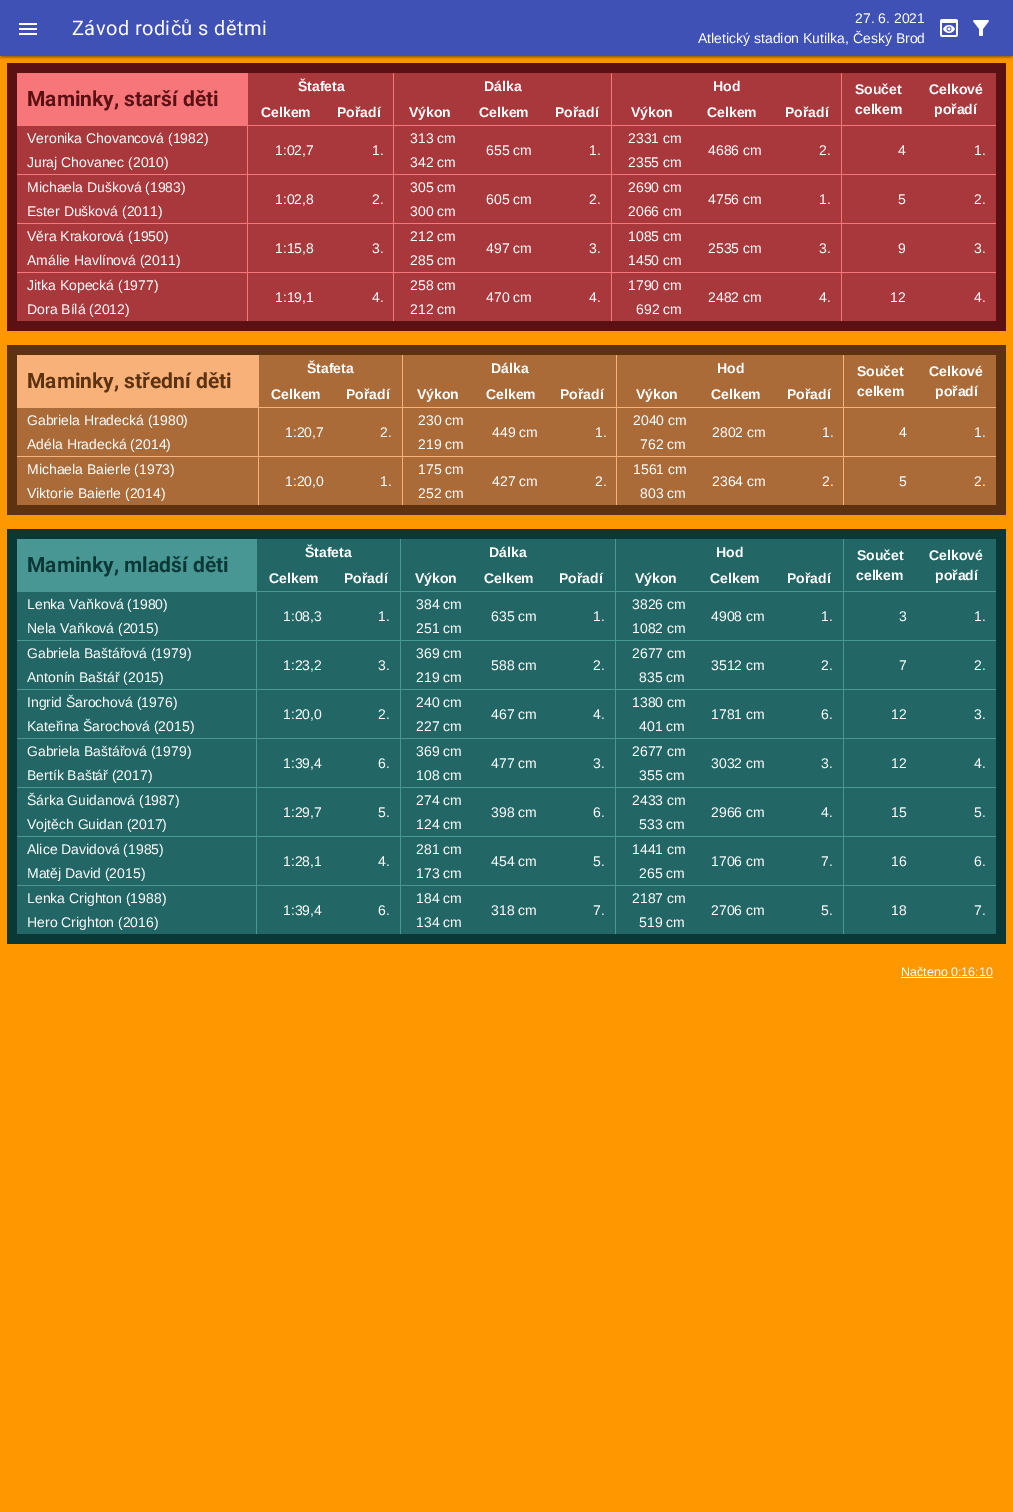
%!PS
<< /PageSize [1013 1512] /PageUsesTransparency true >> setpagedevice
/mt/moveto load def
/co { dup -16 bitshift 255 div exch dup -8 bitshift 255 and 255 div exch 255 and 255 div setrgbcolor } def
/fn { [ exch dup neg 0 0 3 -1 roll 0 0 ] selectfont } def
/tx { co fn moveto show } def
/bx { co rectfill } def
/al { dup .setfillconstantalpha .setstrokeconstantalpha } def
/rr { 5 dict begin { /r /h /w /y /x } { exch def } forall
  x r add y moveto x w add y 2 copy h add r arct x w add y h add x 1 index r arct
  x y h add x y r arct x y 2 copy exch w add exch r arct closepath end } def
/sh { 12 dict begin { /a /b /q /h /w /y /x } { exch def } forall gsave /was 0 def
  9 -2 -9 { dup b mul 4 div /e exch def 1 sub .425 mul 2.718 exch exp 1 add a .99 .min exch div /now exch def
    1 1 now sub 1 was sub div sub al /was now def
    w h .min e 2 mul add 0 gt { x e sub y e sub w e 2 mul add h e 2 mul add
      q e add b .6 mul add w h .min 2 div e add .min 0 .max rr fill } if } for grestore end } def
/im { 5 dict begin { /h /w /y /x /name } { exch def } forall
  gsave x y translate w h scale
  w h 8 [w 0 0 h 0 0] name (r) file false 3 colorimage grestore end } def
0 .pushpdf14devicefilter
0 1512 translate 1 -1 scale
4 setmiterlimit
0 0 1013 1512 16#FF9800 bx
12 125 990 1 16#F6767A bx
12 174 990 1 16#F6767A bx
12 223 990 1 16#F6767A bx
12 272 990 1 16#F6767A bx
841 68 1 259 16#F6767A bx
393 68 1 259 16#F6767A bx
611 68 1 259 16#F6767A bx
17 63 979 10 16#5B1113 bx
996 63 10 258 16#5B1113 bx
7 63 10 268 16#5B1113 bx
16#000000 co
0 1 1013 56 0 2.5 .12 sh
2 5 1009 52 0 .5 .2 sh
0 2 1013 56 0 1 .14 sh
0 0 1013 56 16#3F51B5 bx
(media/1.raw) 19 23 18 12 im
(media/2.raw) 940 19 18 18 im
(media/3.raw) 973 20 16 16 im
247 125 1 202 16#F6767A bx
17 321 989 10 16#5B1113 bx
17 73 231 52 16#F6767A bx
248 73 145 26 16#A8383B bx
394 73 217 26 16#A8383B bx
612 73 229 26 16#A8383B bx
842 73 154 52 16#A8383B bx
248 99 145 26 16#A8383B bx
394 99 217 26 16#A8383B bx
612 99 229 26 16#A8383B bx
17 126 230 48 16#A8383B bx
394 126 72 48 16#A8383B bx
612 126 80 48 16#A8383B bx
248 126 145 48 16#A8383B bx
466 126 145 48 16#A8383B bx
692 126 149 48 16#A8383B bx
842 126 154 48 16#A8383B bx
17 175 230 48 16#A8383B bx
394 175 72 48 16#A8383B bx
612 175 80 48 16#A8383B bx
248 175 145 48 16#A8383B bx
466 175 145 48 16#A8383B bx
692 175 149 48 16#A8383B bx
842 175 154 48 16#A8383B bx
17 224 230 48 16#A8383B bx
394 224 72 48 16#A8383B bx
612 224 80 48 16#A8383B bx
248 224 145 48 16#A8383B bx
466 224 145 48 16#A8383B bx
692 224 149 48 16#A8383B bx
842 224 154 48 16#A8383B bx
17 273 230 48 16#A8383B bx
394 273 72 48 16#A8383B bx
612 273 80 48 16#A8383B bx
248 273 145 48 16#A8383B bx
466 273 145 48 16#A8383B bx
692 273 149 48 16#A8383B bx
842 273 154 48 16#A8383B bx
12 407 990 1 16#F8B178 bx
12 456 990 1 16#F8B178 bx
258 350 1 161 16#F8B178 bx
843 350 1 161 16#F8B178 bx
402 350 1 161 16#F8B178 bx
616 350 1 161 16#F8B178 bx
17 345 979 10 16#5C3211 bx
996 345 10 160 16#5C3211 bx
17 505 989 10 16#5C3211 bx
7 345 10 170 16#5C3211 bx
17 355 241 52 16#F8B178 bx
259 355 143 26 16#AA6B39 bx
403 355 213 26 16#AA6B39 bx
617 355 226 26 16#AA6B39 bx
844 355 152 52 16#AA6B39 bx
259 381 143 26 16#AA6B39 bx
403 381 213 26 16#AA6B39 bx
617 381 226 26 16#AA6B39 bx
17 408 241 48 16#AA6B39 bx
403 408 70 48 16#AA6B39 bx
617 408 79 48 16#AA6B39 bx
259 408 143 48 16#AA6B39 bx
473 408 143 48 16#AA6B39 bx
696 408 147 48 16#AA6B39 bx
844 408 152 48 16#AA6B39 bx
17 457 241 48 16#AA6B39 bx
403 457 70 48 16#AA6B39 bx
617 457 79 48 16#AA6B39 bx
259 457 143 48 16#AA6B39 bx
473 457 143 48 16#AA6B39 bx
696 457 147 48 16#AA6B39 bx
844 457 152 48 16#AA6B39 bx
12 591 990 1 16#499794 bx
12 640 990 1 16#499794 bx
12 689 990 1 16#499794 bx
12 738 990 1 16#499794 bx
12 787 990 1 16#499794 bx
12 836 990 1 16#499794 bx
12 885 990 1 16#499794 bx
256 534 1 406 16#499794 bx
843 534 1 406 16#499794 bx
400 534 1 406 16#499794 bx
615 534 1 406 16#499794 bx
17 529 979 10 16#0A3836 bx
996 529 10 405 16#0A3836 bx
17 934 989 10 16#0A3836 bx
7 529 10 415 16#0A3836 bx
17 539 239 52 16#499794 bx
257 539 143 26 16#226765 bx
401 539 214 26 16#226765 bx
616 539 227 26 16#226765 bx
844 539 152 52 16#226765 bx
257 565 143 26 16#226765 bx
401 565 214 26 16#226765 bx
616 565 227 26 16#226765 bx
17 592 239 48 16#226765 bx
401 592 71 48 16#226765 bx
616 592 79 48 16#226765 bx
257 592 143 48 16#226765 bx
472 592 143 48 16#226765 bx
695 592 148 48 16#226765 bx
844 592 152 48 16#226765 bx
17 641 239 48 16#226765 bx
401 641 71 48 16#226765 bx
616 641 79 48 16#226765 bx
257 641 143 48 16#226765 bx
472 641 143 48 16#226765 bx
695 641 148 48 16#226765 bx
844 641 152 48 16#226765 bx
17 690 239 48 16#226765 bx
401 690 71 48 16#226765 bx
616 690 79 48 16#226765 bx
257 690 143 48 16#226765 bx
472 690 143 48 16#226765 bx
695 690 148 48 16#226765 bx
844 690 152 48 16#226765 bx
17 739 239 48 16#226765 bx
401 739 71 48 16#226765 bx
616 739 79 48 16#226765 bx
257 739 143 48 16#226765 bx
472 739 143 48 16#226765 bx
695 739 148 48 16#226765 bx
844 739 152 48 16#226765 bx
17 788 239 48 16#226765 bx
401 788 71 48 16#226765 bx
616 788 79 48 16#226765 bx
257 788 143 48 16#226765 bx
472 788 143 48 16#226765 bx
695 788 148 48 16#226765 bx
844 788 152 48 16#226765 bx
17 837 239 48 16#226765 bx
401 837 71 48 16#226765 bx
616 837 79 48 16#226765 bx
257 837 143 48 16#226765 bx
472 837 143 48 16#226765 bx
695 837 148 48 16#226765 bx
844 837 152 48 16#226765 bx
17 886 239 48 16#226765 bx
401 886 71 48 16#226765 bx
616 886 79 48 16#226765 bx
257 886 143 48 16#226765 bx
472 886 143 48 16#226765 bx
695 886 148 48 16#226765 bx
844 886 152 48 16#226765 bx
901 977 92 1 16#FFFFFF bx
/Roboto-Regular 20 fn
72 35 mt .4 0 (Závod rodičů s dětmi) ashow
(27. 6. 2021) 855 23 /LiberationSans-Regular 14 16#FFFFFF tx
(Atletický stadion Kutilka, Český Brod) 698 43 /LiberationSans-Regular 14 16#FFFFFF tx
(Maminky, starší děti) 27 106 /Roboto-Bold 21 16#5B1113 tx
(Štafeta) 298 91 /LiberationSans-Bold 14 16#FFFFFF tx
(Dálka) 484 91 /LiberationSans-Bold 14 16#FFFFFF tx
(Hod) 713 91 /LiberationSans-Bold 14 16#FFFFFF tx
(Součet) 855 94 /LiberationSans-Bold 14 16#FFFFFF tx
(celkem) 855 114 /LiberationSans-Bold 14 16#FFFFFF tx
(Celkové) 929 94 /LiberationSans-Bold 14 16#FFFFFF tx
(pořadí) 934 114 /LiberationSans-Bold 14 16#FFFFFF tx
(Celkem) 261 117 /LiberationSans-Bold 14 16#FFFFFF tx
(Pořadí) 337 117 /LiberationSans-Bold 14 16#FFFFFF tx
(Výkon) 409 117 /LiberationSans-Bold 14 16#FFFFFF tx
(Celkem) 479 117 /LiberationSans-Bold 14 16#FFFFFF tx
(Pořadí) 555 117 /LiberationSans-Bold 14 16#FFFFFF tx
(Výkon) 631 117 /LiberationSans-Bold 14 16#FFFFFF tx
(Celkem) 707 117 /LiberationSans-Bold 14 16#FFFFFF tx
(Pořadí) 785 117 /LiberationSans-Bold 14 16#FFFFFF tx
(Veronika Chovancová \(1982\)) 27 143 /LiberationSans-Regular 14 16#FFFFFF tx
(313 cm) 410 143 /LiberationSans-Regular 14 16#FFFFFF tx
(2331 cm) 628 143 /LiberationSans-Regular 14 16#FFFFFF tx
(1:02,7) 275 155 /LiberationSans-Regular 14 16#FFFFFF tx
(1.) 372 155 /LiberationSans-Regular 14 16#FFFFFF tx
(655 cm) 486 155 /LiberationSans-Regular 14 16#FFFFFF tx
(1.) 589 155 /LiberationSans-Regular 14 16#FFFFFF tx
(4686 cm) 708 155 /LiberationSans-Regular 14 16#FFFFFF tx
(2.) 819 155 /LiberationSans-Regular 14 16#FFFFFF tx
(4) 898 155 /LiberationSans-Regular 14 16#FFFFFF tx
(1.) 974 155 /LiberationSans-Regular 14 16#FFFFFF tx
(Juraj Chovanec \(2010\)) 27 167 /LiberationSans-Regular 14 16#FFFFFF tx
(342 cm) 410 167 /LiberationSans-Regular 14 16#FFFFFF tx
(2355 cm) 628 167 /LiberationSans-Regular 14 16#FFFFFF tx
(Michaela Dušková \(1983\)) 27 192 /LiberationSans-Regular 14 16#FFFFFF tx
(305 cm) 410 192 /LiberationSans-Regular 14 16#FFFFFF tx
(2690 cm) 628 192 /LiberationSans-Regular 14 16#FFFFFF tx
(1:02,8) 275 204 /LiberationSans-Regular 14 16#FFFFFF tx
(2.) 372 204 /LiberationSans-Regular 14 16#FFFFFF tx
(605 cm) 486 204 /LiberationSans-Regular 14 16#FFFFFF tx
(2.) 589 204 /LiberationSans-Regular 14 16#FFFFFF tx
(4756 cm) 708 204 /LiberationSans-Regular 14 16#FFFFFF tx
(1.) 819 204 /LiberationSans-Regular 14 16#FFFFFF tx
(5) 898 204 /LiberationSans-Regular 14 16#FFFFFF tx
(2.) 974 204 /LiberationSans-Regular 14 16#FFFFFF tx
(Ester Dušková \(2011\)) 27 216 /LiberationSans-Regular 14 16#FFFFFF tx
(300 cm) 410 216 /LiberationSans-Regular 14 16#FFFFFF tx
(2066 cm) 628 216 /LiberationSans-Regular 14 16#FFFFFF tx
(Věra Krakorová \(1950\)) 27 241 /LiberationSans-Regular 14 16#FFFFFF tx
(212 cm) 410 241 /LiberationSans-Regular 14 16#FFFFFF tx
(1085 cm) 628 241 /LiberationSans-Regular 14 16#FFFFFF tx
(1:15,8) 275 253 /LiberationSans-Regular 14 16#FFFFFF tx
(3.) 372 253 /LiberationSans-Regular 14 16#FFFFFF tx
(497 cm) 486 253 /LiberationSans-Regular 14 16#FFFFFF tx
(3.) 589 253 /LiberationSans-Regular 14 16#FFFFFF tx
(2535 cm) 708 253 /LiberationSans-Regular 14 16#FFFFFF tx
(3.) 819 253 /LiberationSans-Regular 14 16#FFFFFF tx
(9) 898 253 /LiberationSans-Regular 14 16#FFFFFF tx
(3.) 974 253 /LiberationSans-Regular 14 16#FFFFFF tx
(Amálie Havlínová \(2011\)) 27 265 /LiberationSans-Regular 14 16#FFFFFF tx
(285 cm) 410 265 /LiberationSans-Regular 14 16#FFFFFF tx
(1450 cm) 628 265 /LiberationSans-Regular 14 16#FFFFFF tx
(Jitka Kopecká \(1977\)) 27 290 /LiberationSans-Regular 14 16#FFFFFF tx
(258 cm) 410 290 /LiberationSans-Regular 14 16#FFFFFF tx
(1790 cm) 628 290 /LiberationSans-Regular 14 16#FFFFFF tx
(1:19,1) 275 302 /LiberationSans-Regular 14 16#FFFFFF tx
(4.) 372 302 /LiberationSans-Regular 14 16#FFFFFF tx
(470 cm) 486 302 /LiberationSans-Regular 14 16#FFFFFF tx
(4.) 589 302 /LiberationSans-Regular 14 16#FFFFFF tx
(2482 cm) 708 302 /LiberationSans-Regular 14 16#FFFFFF tx
(4.) 819 302 /LiberationSans-Regular 14 16#FFFFFF tx
(12) 890 302 /LiberationSans-Regular 14 16#FFFFFF tx
(4.) 974 302 /LiberationSans-Regular 14 16#FFFFFF tx
(Dora Bílá \(2012\)) 27 314 /LiberationSans-Regular 14 16#FFFFFF tx
(212 cm) 410 314 /LiberationSans-Regular 14 16#FFFFFF tx
(692 cm) 636 314 /LiberationSans-Regular 14 16#FFFFFF tx
(Maminky, střední děti) 27 388 /Roboto-Bold 21 16#5C3211 tx
(Štafeta) 307 373 /LiberationSans-Bold 14 16#FFFFFF tx
(Dálka) 491 373 /LiberationSans-Bold 14 16#FFFFFF tx
(Hod) 717 373 /LiberationSans-Bold 14 16#FFFFFF tx
(Součet) 857 376 /LiberationSans-Bold 14 16#FFFFFF tx
(celkem) 857 396 /LiberationSans-Bold 14 16#FFFFFF tx
(Celkové) 929 376 /LiberationSans-Bold 14 16#FFFFFF tx
(pořadí) 935 396 /LiberationSans-Bold 14 16#FFFFFF tx
(Celkem) 271 399 /LiberationSans-Bold 14 16#FFFFFF tx
(Pořadí) 346 399 /LiberationSans-Bold 14 16#FFFFFF tx
(Výkon) 417 399 /LiberationSans-Bold 14 16#FFFFFF tx
(Celkem) 486 399 /LiberationSans-Bold 14 16#FFFFFF tx
(Pořadí) 560 399 /LiberationSans-Bold 14 16#FFFFFF tx
(Výkon) 636 399 /LiberationSans-Bold 14 16#FFFFFF tx
(Celkem) 711 399 /LiberationSans-Bold 14 16#FFFFFF tx
(Pořadí) 787 399 /LiberationSans-Bold 14 16#FFFFFF tx
(Gabriela Hradecká \(1980\)) 27 425 /LiberationSans-Regular 14 16#FFFFFF tx
(230 cm) 418 425 /LiberationSans-Regular 14 16#FFFFFF tx
(2040 cm) 633 425 /LiberationSans-Regular 14 16#FFFFFF tx
(1:20,7) 285 437 /LiberationSans-Regular 14 16#FFFFFF tx
(2.) 380 437 /LiberationSans-Regular 14 16#FFFFFF tx
(449 cm) 492 437 /LiberationSans-Regular 14 16#FFFFFF tx
(1.) 595 437 /LiberationSans-Regular 14 16#FFFFFF tx
(2802 cm) 712 437 /LiberationSans-Regular 14 16#FFFFFF tx
(1.) 822 437 /LiberationSans-Regular 14 16#FFFFFF tx
(4) 899 437 /LiberationSans-Regular 14 16#FFFFFF tx
(1.) 974 437 /LiberationSans-Regular 14 16#FFFFFF tx
(Adéla Hradecká \(2014\)) 27 449 /LiberationSans-Regular 14 16#FFFFFF tx
(219 cm) 418 449 /LiberationSans-Regular 14 16#FFFFFF tx
(762 cm) 640 449 /LiberationSans-Regular 14 16#FFFFFF tx
(Michaela Baierle \(1973\)) 27 474 /LiberationSans-Regular 14 16#FFFFFF tx
(175 cm) 418 474 /LiberationSans-Regular 14 16#FFFFFF tx
(1561 cm) 633 474 /LiberationSans-Regular 14 16#FFFFFF tx
(1:20,0) 285 486 /LiberationSans-Regular 14 16#FFFFFF tx
(1.) 380 486 /LiberationSans-Regular 14 16#FFFFFF tx
(427 cm) 492 486 /LiberationSans-Regular 14 16#FFFFFF tx
(2.) 595 486 /LiberationSans-Regular 14 16#FFFFFF tx
(2364 cm) 712 486 /LiberationSans-Regular 14 16#FFFFFF tx
(2.) 822 486 /LiberationSans-Regular 14 16#FFFFFF tx
(5) 899 486 /LiberationSans-Regular 14 16#FFFFFF tx
(2.) 974 486 /LiberationSans-Regular 14 16#FFFFFF tx
(Viktorie Baierle \(2014\)) 27 498 /LiberationSans-Regular 14 16#FFFFFF tx
(252 cm) 418 498 /LiberationSans-Regular 14 16#FFFFFF tx
(803 cm) 640 498 /LiberationSans-Regular 14 16#FFFFFF tx
(Maminky, mladší děti) 27 572 /Roboto-Bold 21 16#0A3836 tx
(Štafeta) 305 557 /LiberationSans-Bold 14 16#FFFFFF tx
(Dálka) 489 557 /LiberationSans-Bold 14 16#FFFFFF tx
(Hod) 716 557 /LiberationSans-Bold 14 16#FFFFFF tx
(Součet) 857 560 /LiberationSans-Bold 14 16#FFFFFF tx
(celkem) 856 580 /LiberationSans-Bold 14 16#FFFFFF tx
(Celkové) 929 560 /LiberationSans-Bold 14 16#FFFFFF tx
(pořadí) 935 580 /LiberationSans-Bold 14 16#FFFFFF tx
(Celkem) 269 583 /LiberationSans-Bold 14 16#FFFFFF tx
(Pořadí) 344 583 /LiberationSans-Bold 14 16#FFFFFF tx
(Výkon) 415 583 /LiberationSans-Bold 14 16#FFFFFF tx
(Celkem) 484 583 /LiberationSans-Bold 14 16#FFFFFF tx
(Pořadí) 559 583 /LiberationSans-Bold 14 16#FFFFFF tx
(Výkon) 635 583 /LiberationSans-Bold 14 16#FFFFFF tx
(Celkem) 710 583 /LiberationSans-Bold 14 16#FFFFFF tx
(Pořadí) 787 583 /LiberationSans-Bold 14 16#FFFFFF tx
(Lenka Vaňková \(1980\)) 27 609 /LiberationSans-Regular 14 16#FFFFFF tx
(384 cm) 416 609 /LiberationSans-Regular 14 16#FFFFFF tx
(3826 cm) 632 609 /LiberationSans-Regular 14 16#FFFFFF tx
(1:08,3) 283 621 /LiberationSans-Regular 14 16#FFFFFF tx
(1.) 378 621 /LiberationSans-Regular 14 16#FFFFFF tx
(635 cm) 491 621 /LiberationSans-Regular 14 16#FFFFFF tx
(1.) 593 621 /LiberationSans-Regular 14 16#FFFFFF tx
(4908 cm) 711 621 /LiberationSans-Regular 14 16#FFFFFF tx
(1.) 821 621 /LiberationSans-Regular 14 16#FFFFFF tx
(3) 899 621 /LiberationSans-Regular 14 16#FFFFFF tx
(1.) 974 621 /LiberationSans-Regular 14 16#FFFFFF tx
(Nela Vaňková \(2015\)) 27 633 /LiberationSans-Regular 14 16#FFFFFF tx
(251 cm) 416 633 /LiberationSans-Regular 14 16#FFFFFF tx
(1082 cm) 632 633 /LiberationSans-Regular 14 16#FFFFFF tx
(Gabriela Baštářová \(1979\)) 27 658 /LiberationSans-Regular 14 16#FFFFFF tx
(369 cm) 416 658 /LiberationSans-Regular 14 16#FFFFFF tx
(2677 cm) 632 658 /LiberationSans-Regular 14 16#FFFFFF tx
(1:23,2) 283 670 /LiberationSans-Regular 14 16#FFFFFF tx
(3.) 378 670 /LiberationSans-Regular 14 16#FFFFFF tx
(588 cm) 491 670 /LiberationSans-Regular 14 16#FFFFFF tx
(2.) 593 670 /LiberationSans-Regular 14 16#FFFFFF tx
(3512 cm) 711 670 /LiberationSans-Regular 14 16#FFFFFF tx
(2.) 821 670 /LiberationSans-Regular 14 16#FFFFFF tx
(7) 899 670 /LiberationSans-Regular 14 16#FFFFFF tx
(2.) 974 670 /LiberationSans-Regular 14 16#FFFFFF tx
(Antonín Baštář \(2015\)) 27 682 /LiberationSans-Regular 14 16#FFFFFF tx
(219 cm) 416 682 /LiberationSans-Regular 14 16#FFFFFF tx
(835 cm) 639 682 /LiberationSans-Regular 14 16#FFFFFF tx
(Ingrid Šarochová \(1976\)) 27 707 /LiberationSans-Regular 14 16#FFFFFF tx
(240 cm) 416 707 /LiberationSans-Regular 14 16#FFFFFF tx
(1380 cm) 632 707 /LiberationSans-Regular 14 16#FFFFFF tx
(1:20,0) 283 719 /LiberationSans-Regular 14 16#FFFFFF tx
(2.) 378 719 /LiberationSans-Regular 14 16#FFFFFF tx
(467 cm) 491 719 /LiberationSans-Regular 14 16#FFFFFF tx
(4.) 593 719 /LiberationSans-Regular 14 16#FFFFFF tx
(1781 cm) 711 719 /LiberationSans-Regular 14 16#FFFFFF tx
(6.) 821 719 /LiberationSans-Regular 14 16#FFFFFF tx
(12) 891 719 /LiberationSans-Regular 14 16#FFFFFF tx
(3.) 974 719 /LiberationSans-Regular 14 16#FFFFFF tx
(Kateřina Šarochová \(2015\)) 27 731 /LiberationSans-Regular 14 16#FFFFFF tx
(227 cm) 416 731 /LiberationSans-Regular 14 16#FFFFFF tx
(401 cm) 639 731 /LiberationSans-Regular 14 16#FFFFFF tx
(Gabriela Baštářová \(1979\)) 27 756 /LiberationSans-Regular 14 16#FFFFFF tx
(369 cm) 416 756 /LiberationSans-Regular 14 16#FFFFFF tx
(2677 cm) 632 756 /LiberationSans-Regular 14 16#FFFFFF tx
(1:39,4) 283 768 /LiberationSans-Regular 14 16#FFFFFF tx
(6.) 378 768 /LiberationSans-Regular 14 16#FFFFFF tx
(477 cm) 491 768 /LiberationSans-Regular 14 16#FFFFFF tx
(3.) 593 768 /LiberationSans-Regular 14 16#FFFFFF tx
(3032 cm) 711 768 /LiberationSans-Regular 14 16#FFFFFF tx
(3.) 821 768 /LiberationSans-Regular 14 16#FFFFFF tx
(12) 891 768 /LiberationSans-Regular 14 16#FFFFFF tx
(4.) 974 768 /LiberationSans-Regular 14 16#FFFFFF tx
(Bertík Baštář \(2017\)) 27 780 /LiberationSans-Regular 14 16#FFFFFF tx
(108 cm) 416 780 /LiberationSans-Regular 14 16#FFFFFF tx
(355 cm) 639 780 /LiberationSans-Regular 14 16#FFFFFF tx
(Šárka Guidanová \(1987\)) 27 805 /LiberationSans-Regular 14 16#FFFFFF tx
(274 cm) 416 805 /LiberationSans-Regular 14 16#FFFFFF tx
(2433 cm) 632 805 /LiberationSans-Regular 14 16#FFFFFF tx
(1:29,7) 283 817 /LiberationSans-Regular 14 16#FFFFFF tx
(5.) 378 817 /LiberationSans-Regular 14 16#FFFFFF tx
(398 cm) 491 817 /LiberationSans-Regular 14 16#FFFFFF tx
(6.) 593 817 /LiberationSans-Regular 14 16#FFFFFF tx
(2966 cm) 711 817 /LiberationSans-Regular 14 16#FFFFFF tx
(4.) 821 817 /LiberationSans-Regular 14 16#FFFFFF tx
(15) 891 817 /LiberationSans-Regular 14 16#FFFFFF tx
(5.) 974 817 /LiberationSans-Regular 14 16#FFFFFF tx
(Vojtěch Guidan \(2017\)) 27 829 /LiberationSans-Regular 14 16#FFFFFF tx
(124 cm) 416 829 /LiberationSans-Regular 14 16#FFFFFF tx
(533 cm) 639 829 /LiberationSans-Regular 14 16#FFFFFF tx
(Alice Davidová \(1985\)) 27 854 /LiberationSans-Regular 14 16#FFFFFF tx
(281 cm) 416 854 /LiberationSans-Regular 14 16#FFFFFF tx
(1441 cm) 632 854 /LiberationSans-Regular 14 16#FFFFFF tx
(1:28,1) 283 866 /LiberationSans-Regular 14 16#FFFFFF tx
(4.) 378 866 /LiberationSans-Regular 14 16#FFFFFF tx
(454 cm) 491 866 /LiberationSans-Regular 14 16#FFFFFF tx
(5.) 593 866 /LiberationSans-Regular 14 16#FFFFFF tx
(1706 cm) 711 866 /LiberationSans-Regular 14 16#FFFFFF tx
(7.) 821 866 /LiberationSans-Regular 14 16#FFFFFF tx
(16) 891 866 /LiberationSans-Regular 14 16#FFFFFF tx
(6.) 974 866 /LiberationSans-Regular 14 16#FFFFFF tx
(Matěj David \(2015\)) 27 878 /LiberationSans-Regular 14 16#FFFFFF tx
(173 cm) 416 878 /LiberationSans-Regular 14 16#FFFFFF tx
(265 cm) 639 878 /LiberationSans-Regular 14 16#FFFFFF tx
(Lenka Crighton \(1988\)) 27 903 /LiberationSans-Regular 14 16#FFFFFF tx
(184 cm) 416 903 /LiberationSans-Regular 14 16#FFFFFF tx
(2187 cm) 632 903 /LiberationSans-Regular 14 16#FFFFFF tx
(1:39,4) 283 915 /LiberationSans-Regular 14 16#FFFFFF tx
(6.) 378 915 /LiberationSans-Regular 14 16#FFFFFF tx
(318 cm) 491 915 /LiberationSans-Regular 14 16#FFFFFF tx
(7.) 593 915 /LiberationSans-Regular 14 16#FFFFFF tx
(2706 cm) 711 915 /LiberationSans-Regular 14 16#FFFFFF tx
(5.) 821 915 /LiberationSans-Regular 14 16#FFFFFF tx
(18) 891 915 /LiberationSans-Regular 14 16#FFFFFF tx
(7.) 974 915 /LiberationSans-Regular 14 16#FFFFFF tx
(Hero Crighton \(2016\)) 27 927 /LiberationSans-Regular 14 16#FFFFFF tx
(134 cm) 416 927 /LiberationSans-Regular 14 16#FFFFFF tx
(519 cm) 639 927 /LiberationSans-Regular 14 16#FFFFFF tx
(Načteno 0:16:10) 901 976 /LiberationSans-Regular 12.5 16#FFFFFF tx
.poppdf14devicefilter showpage
